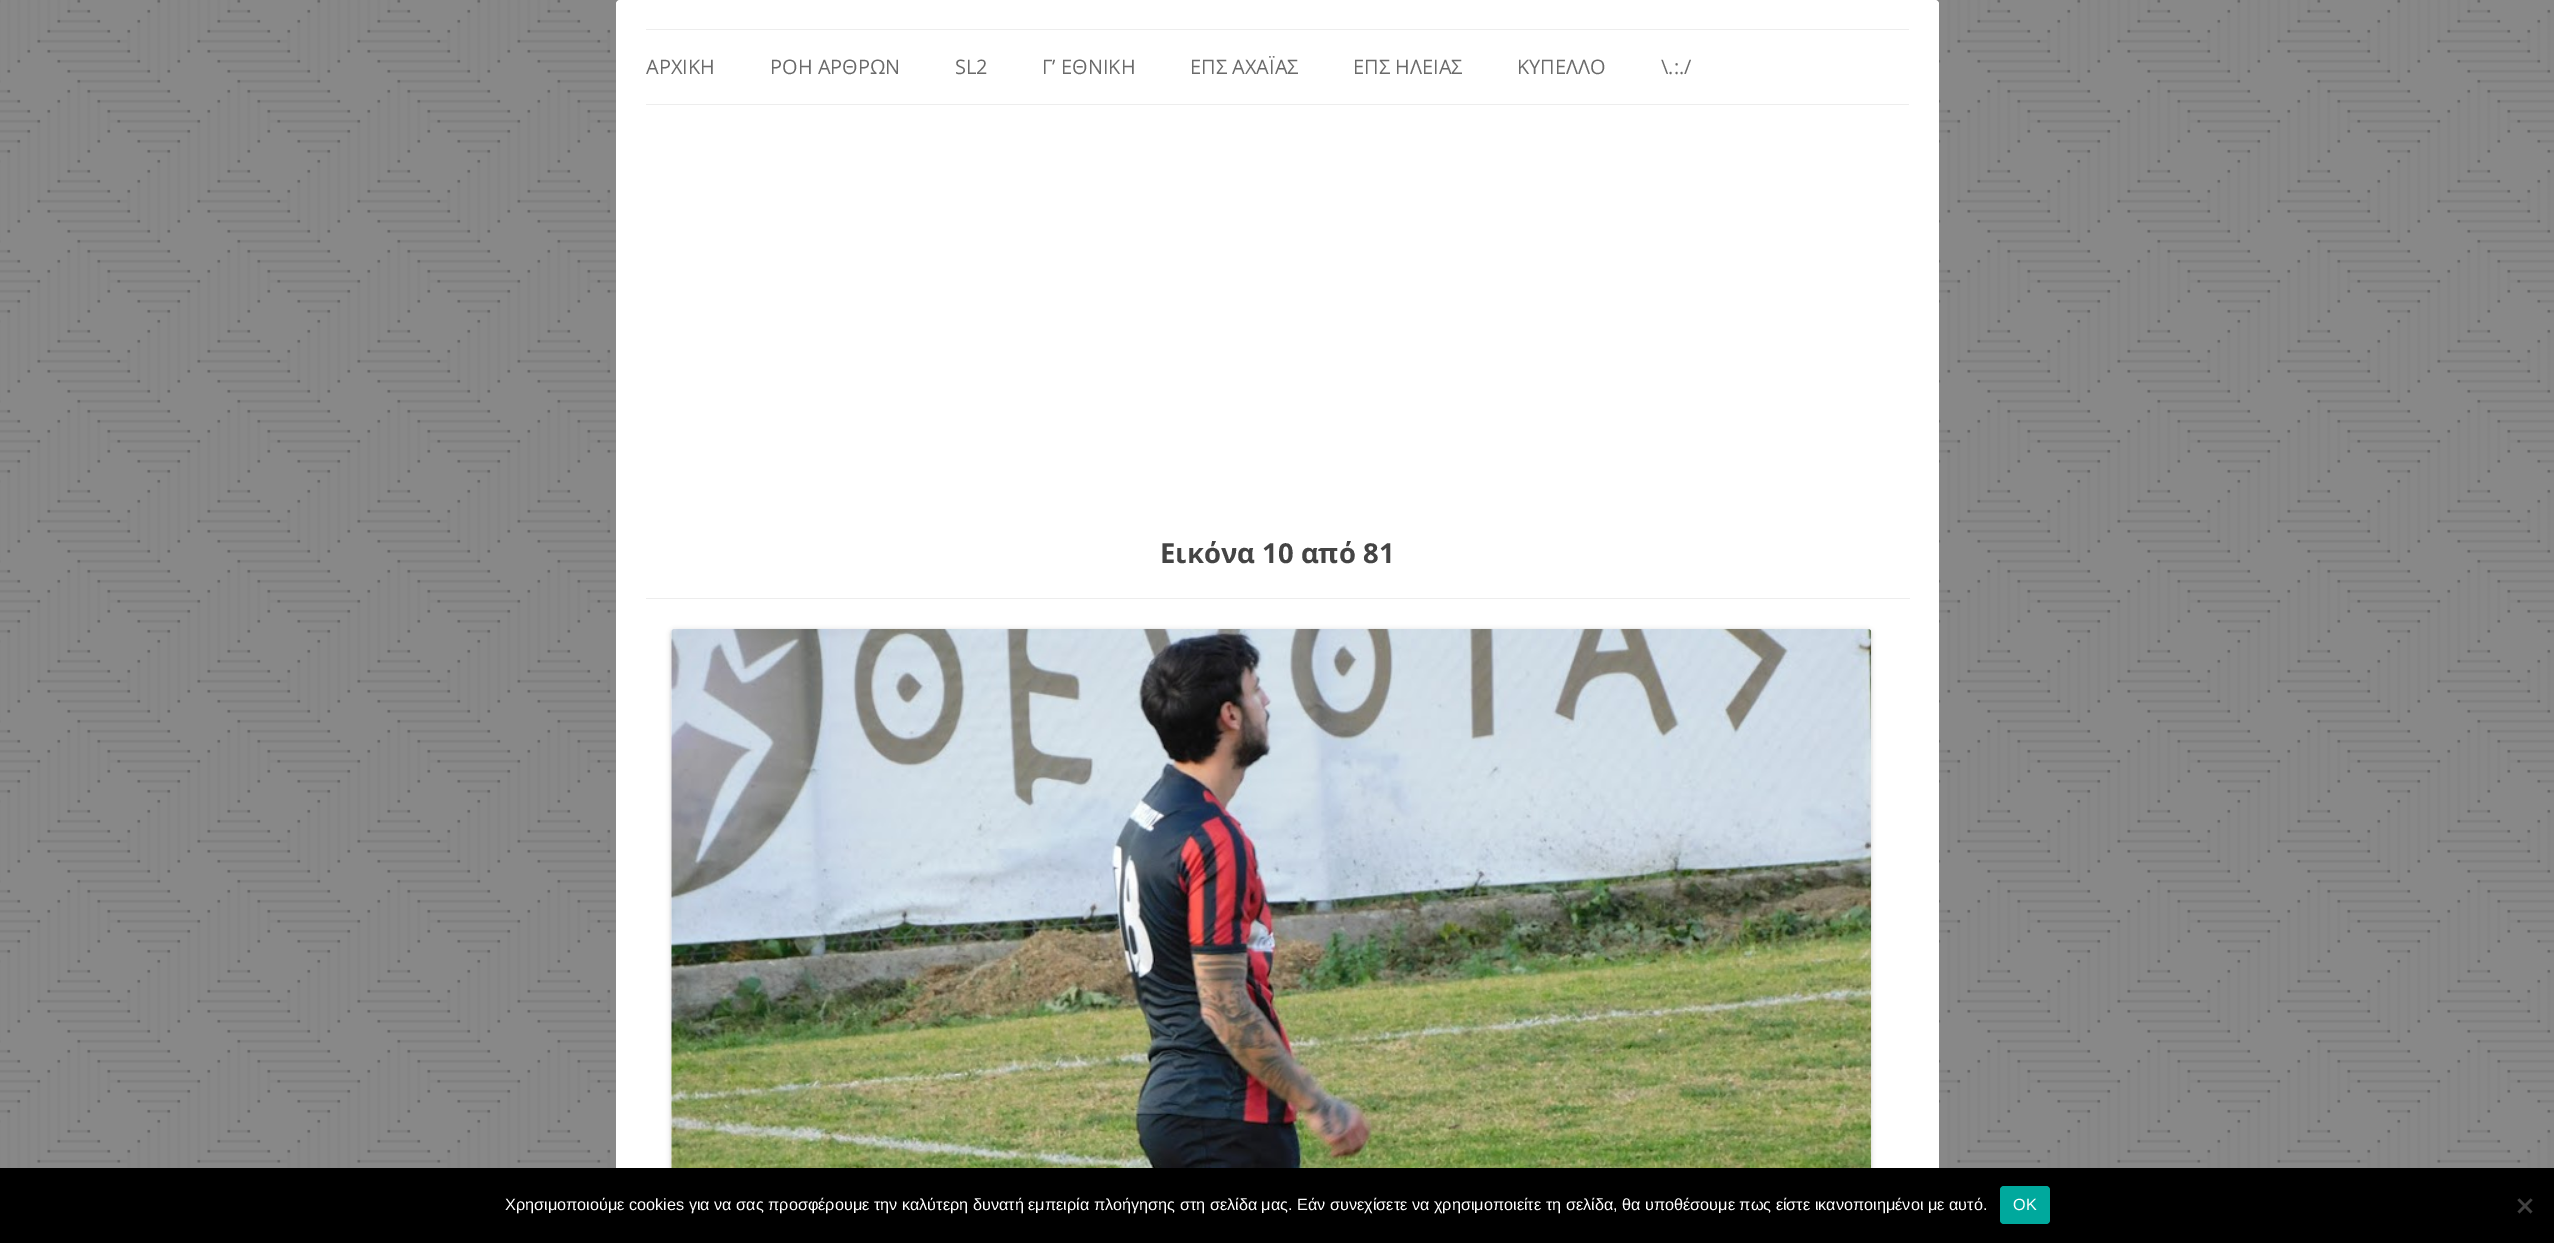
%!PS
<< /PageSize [2554 1243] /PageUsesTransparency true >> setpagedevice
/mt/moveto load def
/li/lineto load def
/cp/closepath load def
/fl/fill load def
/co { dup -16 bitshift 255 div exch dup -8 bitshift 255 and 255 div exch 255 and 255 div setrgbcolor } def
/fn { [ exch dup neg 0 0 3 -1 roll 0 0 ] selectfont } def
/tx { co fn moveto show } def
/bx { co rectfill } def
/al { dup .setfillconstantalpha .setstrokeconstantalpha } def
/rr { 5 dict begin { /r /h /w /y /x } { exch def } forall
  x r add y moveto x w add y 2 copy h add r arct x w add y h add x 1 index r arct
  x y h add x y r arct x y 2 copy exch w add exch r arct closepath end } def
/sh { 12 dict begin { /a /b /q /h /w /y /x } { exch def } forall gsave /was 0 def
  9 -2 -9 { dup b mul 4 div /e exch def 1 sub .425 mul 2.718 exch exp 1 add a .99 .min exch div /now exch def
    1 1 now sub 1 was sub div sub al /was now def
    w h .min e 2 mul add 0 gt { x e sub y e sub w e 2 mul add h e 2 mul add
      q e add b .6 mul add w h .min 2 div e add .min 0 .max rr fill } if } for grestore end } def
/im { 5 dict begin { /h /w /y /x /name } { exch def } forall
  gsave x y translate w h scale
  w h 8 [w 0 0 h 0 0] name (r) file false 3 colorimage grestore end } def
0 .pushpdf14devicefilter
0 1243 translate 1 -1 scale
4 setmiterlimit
0 0 2554 1243 16#FFFFFF bx
(media/1.raw) 0 0 2554 1168 im
616 0 1323 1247 4 rr fl
646 29 1263 1 16#EDEDED bx
646 104 1263 1 16#EDEDED bx
646 598 1264 1 16#EDEDED bx
16#000000 co
671 630 1200 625 4 2.5 .2 sh
(media/2.raw) 671 628 1201 540 im
0 1168 2554 75 16#000000 bx
16#00A99D co
2000 1186 50 38 4 rr fl
16#404040 co
2530.5 1198.5 mt 2532.5 1200 li 2519.5 1213.5 li 2517.5 1211.5 li cp fl
2517.5 1200 mt 2519.5 1198.5 li 2532.5 1211.5 li 2530.5 1213.5 li cp fl
(ΑΡΧΙΚΗ) 646 74 /OpenSans-Regular 20 16#6A6A6A tx
(ΡΟΗ ΑΡΘΡΩΝ) 770 74 /OpenSans-Regular 20 16#6A6A6A tx
(SL2) 955 74 /OpenSans-Regular 20 16#6A6A6A tx
(Γ’ ΕΘΝΙΚΗ) 1042 74 /OpenSans-Regular 20 16#6A6A6A tx
(ΕΠΣ ΑΧΑΪΑΣ) 1190 74 /OpenSans-Regular 20 16#6A6A6A tx
(ΕΠΣ ΗΛΕΙΑΣ) 1353 74 /OpenSans-Regular 20 16#6A6A6A tx
(ΚΥΠΕΛΛΟ) 1517 74 /OpenSans-Regular 20 16#6A6A6A tx
(\\.:./) 1661 74 /OpenSans-Regular 20 16#6A6A6A tx
(Εικόνα 10 από 81) 1160 563 /OpenSans-Bold 27.5 16#444444 tx
(Χρησιμοποιούμε cookies για να σας προσφέρουμε την καλύτερη δυνατή εμπειρία πλοήγησης στη σελίδα μας. Εάν συνεχίσετε να χρησιμοποιείτε τη σελίδα, θα υποθέσουμε πως είστε ικανοποιημένοι με αυτό.) 505 1210 /LiberationSans-Regular 16.25 16#FFFFFF tx
(ΟΚ) 2013 1210 /LiberationSans-Regular 16.25 16#FFFFFF tx
.poppdf14devicefilter showpage
